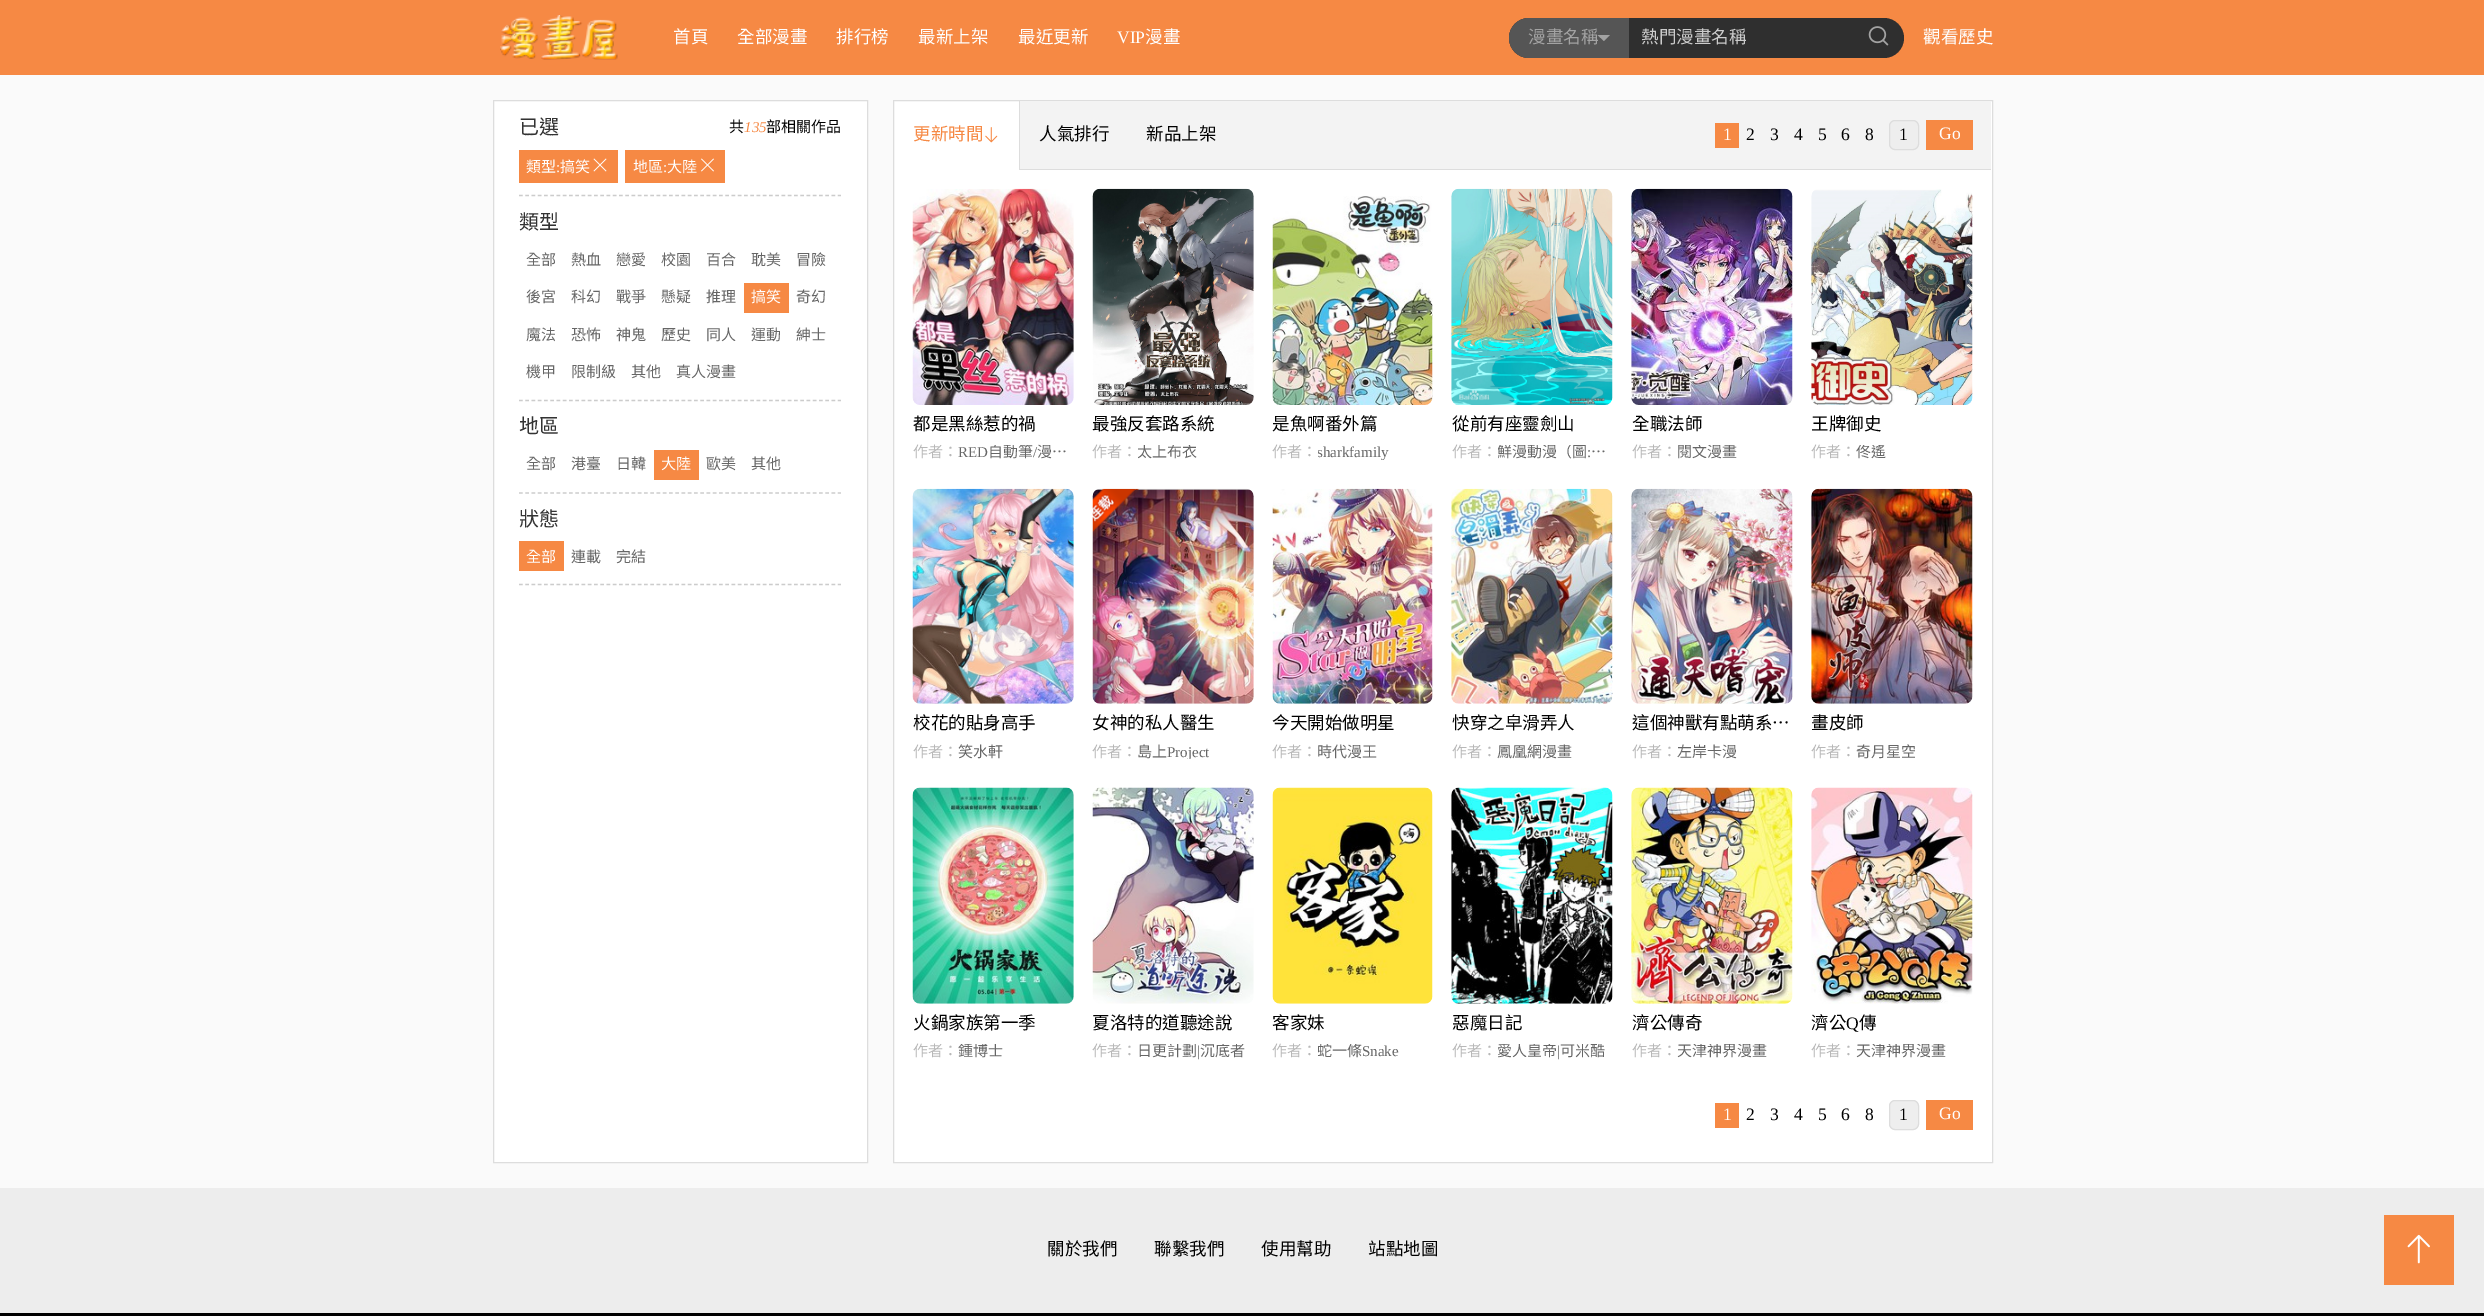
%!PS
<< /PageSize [2484 1316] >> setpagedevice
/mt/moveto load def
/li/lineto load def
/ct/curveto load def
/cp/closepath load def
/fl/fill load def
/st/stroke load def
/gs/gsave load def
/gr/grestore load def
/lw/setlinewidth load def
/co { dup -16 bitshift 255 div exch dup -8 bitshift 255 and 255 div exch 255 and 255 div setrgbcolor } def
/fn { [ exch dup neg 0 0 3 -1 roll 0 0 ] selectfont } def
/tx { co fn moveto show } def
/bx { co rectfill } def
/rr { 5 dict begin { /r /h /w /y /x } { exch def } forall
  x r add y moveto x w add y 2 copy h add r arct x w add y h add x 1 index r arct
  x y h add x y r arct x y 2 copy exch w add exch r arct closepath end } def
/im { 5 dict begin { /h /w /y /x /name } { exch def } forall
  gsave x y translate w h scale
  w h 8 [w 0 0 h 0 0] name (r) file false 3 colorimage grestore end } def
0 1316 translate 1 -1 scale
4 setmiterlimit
0 0 2484 1316 16#FAFAFA bx
0 0 2484 75 16#F68944 bx
(media/1.raw) 500 15 118 45 im
16#2F2F2F co
1509 18 395 40 20 rr fl
16#555555 co
1529 18 mt 1629 18 li 1629 58 li 1529 58 li 1518 58 1509 49 1509 38 ct 1509 27 1518 18 1529 18 ct cp fl
16#A3A3A3 co
1597.5 35 mt 1610 35 li 1604 41 li cp fl
(media/2.raw) 1868 26 21 20 im
16#FFFFFF co
493.5 100.5 mt 867.5 100.5 li 867.5 1162.5 li 493.5 1162.5 li cp gs fl gr
16#DDDDDD co
st
16#CCCCCC co
1.2 lw
[3.75 2.5] 0 setdash
519 195.5 mt 841 195.5 li st
519 150 99 33 16#F68944 bx
(media/3.raw) 593 158 14 14 im
625 150 100 33 16#F68944 bx
(media/4.raw) 701 158 13 14 im
16#CCCCCC co
519 400.5 mt 841 400.5 li st
744 283 45 30 16#F68944 bx
16#CCCCCC co
519 493 mt 841 493 li st
654 450 45 30 16#F68944 bx
16#CCCCCC co
519 584.5 mt 841 584.5 li st
519 541 45 30 16#F68944 bx
16#FFFFFF co
893.5 100.5 mt 1992.5 100.5 li 1992.5 1162.5 li 893.5 1162.5 li cp gs fl gr
16#DDDDDD co
1 lw
[] 0 setdash
st
1020 101 971 68 16#F3F3F3 bx
1020 169 971 1 16#DDDDDD bx
1019 101 1 69 16#DDDDDD bx
(media/5.raw) 985 127 13 16 im
1715 123 24 25 16#F68944 bx
16#EEEEEE co
1889.5 120.5 29 29 5.5 rr gs fl gr
16#DDDDDD co
st
1926 120 47 30 16#F68944 bx
(media/6.raw) 912 188 162 217 im
(media/7.raw) 1092 188 162 217 im
(media/8.raw) 1272 196 161 209 im
(media/9.raw) 1451 188 162 217 im
(media/10.raw) 1631 188 162 217 im
(media/11.raw) 1811 189 162 216 im
(media/12.raw) 912 488 162 216 im
(media/13.raw) 1092 488 162 216 im
(media/14.raw) 1272 488 161 216 im
(media/15.raw) 1451 488 162 216 im
(media/16.raw) 1631 488 162 216 im
(media/17.raw) 1811 488 162 216 im
(media/18.raw) 912 787 162 217 im
(media/19.raw) 1092 787 162 217 im
(media/20.raw) 1272 787 161 217 im
(media/21.raw) 1451 787 162 217 im
(media/22.raw) 1631 787 162 217 im
(media/23.raw) 1811 787 162 217 im
1715 1103 24 25 16#F68944 bx
16#EEEEEE co
1889.5 1100.5 29 29 5.5 rr gs fl gr
16#DDDDDD co
st
1926 1100 47 30 16#F68944 bx
0 1313 2484 3 16#000000 bx
0 1188 2484 125 16#EDEDED bx
2384 1215 70 70 16#F68944 bx
(media/24.raw) 2407 1234 23 30 im
(首頁) 673 43 /NotoSansCJKTC-Regular 17.5 16#FFFFFF tx
(全部漫畫) 737 43 /NotoSansCJKTC-Regular 17.5 16#FFFFFF tx
(排行榜) 836 43 /NotoSansCJKTC-Regular 17.5 16#FFFFFF tx
(最新上架) 918 43 /NotoSansCJKTC-Regular 17.5 16#FFFFFF tx
(最近更新) 1018 43 /NotoSansCJKTC-Regular 17.5 16#FFFFFF tx
(VIP) 1117 43 /LiberationSerif-Regular 17.5 16#FFFFFF tx
(漫畫) 1145 43 /NotoSansCJKTC-Regular 17.5 16#FFFFFF tx
(漫畫名稱) 1528 43 /NotoSansCJKTC-Regular 17.5 16#A3A3A3 tx
(熱門漫畫名稱) 1641 43 /NotoSansCJKTC-Regular 17.5 16#CCCCCC tx
(觀看歷史) 1923 43 /NotoSansCJKTC-Regular 17.5 16#FFFFFF tx
(已選) 519 134 /NotoSansCJKTC-Regular 20 16#333333 tx
(共) 729 132 /NotoSansCJKTC-Regular 15 16#000000 tx
(135) 744 132 /LiberationSerif-Italic 15 16#F68944 tx
(部相關作品) 766 132 /NotoSansCJKTC-Regular 15 16#000000 tx
(類型) 526 172 /NotoSansCJKTC-Regular 15 16#FFFFFF tx
(:) 556 172 /LiberationSerif-Regular 15 16#FFFFFF tx
(搞笑) 560 172 /NotoSansCJKTC-Regular 15 16#FFFFFF tx
(地區) 633 172 /NotoSansCJKTC-Regular 15 16#FFFFFF tx
(:) 663 172 /LiberationSerif-Regular 15 16#FFFFFF tx
(大陸) 667 172 /NotoSansCJKTC-Regular 15 16#FFFFFF tx
(類型) 519 229 /NotoSansCJKTC-Regular 20 16#333333 tx
(全部) 526 265 /NotoSansCJKTC-Regular 15 16#666666 tx
(熱血) 571 265 /NotoSansCJKTC-Regular 15 16#666666 tx
(戀愛) 616 265 /NotoSansCJKTC-Regular 15 16#666666 tx
(校園) 661 265 /NotoSansCJKTC-Regular 15 16#666666 tx
(百合) 706 265 /NotoSansCJKTC-Regular 15 16#666666 tx
(耽美) 751 265 /NotoSansCJKTC-Regular 15 16#666666 tx
(冒險) 796 265 /NotoSansCJKTC-Regular 15 16#666666 tx
(後宮) 526 302 /NotoSansCJKTC-Regular 15 16#666666 tx
(科幻) 571 302 /NotoSansCJKTC-Regular 15 16#666666 tx
(戰爭) 616 302 /NotoSansCJKTC-Regular 15 16#666666 tx
(懸疑) 661 302 /NotoSansCJKTC-Regular 15 16#666666 tx
(推理) 706 302 /NotoSansCJKTC-Regular 15 16#666666 tx
(搞笑) 751 302 /NotoSansCJKTC-Regular 15 16#FFFFFF tx
(奇幻) 796 302 /NotoSansCJKTC-Regular 15 16#666666 tx
(魔法) 526 340 /NotoSansCJKTC-Regular 15 16#666666 tx
(恐怖) 571 340 /NotoSansCJKTC-Regular 15 16#666666 tx
(神鬼) 616 340 /NotoSansCJKTC-Regular 15 16#666666 tx
(歷史) 661 340 /NotoSansCJKTC-Regular 15 16#666666 tx
(同人) 706 340 /NotoSansCJKTC-Regular 15 16#666666 tx
(運動) 751 340 /NotoSansCJKTC-Regular 15 16#666666 tx
(紳士) 796 340 /NotoSansCJKTC-Regular 15 16#666666 tx
(機甲) 526 377 /NotoSansCJKTC-Regular 15 16#666666 tx
(限制級) 571 377 /NotoSansCJKTC-Regular 15 16#666666 tx
(其他) 631 377 /NotoSansCJKTC-Regular 15 16#666666 tx
(真人漫畫) 676 377 /NotoSansCJKTC-Regular 15 16#666666 tx
(地區) 519 433 /NotoSansCJKTC-Regular 20 16#333333 tx
(全部) 526 469 /NotoSansCJKTC-Regular 15 16#666666 tx
(港臺) 571 469 /NotoSansCJKTC-Regular 15 16#666666 tx
(日韓) 616 469 /NotoSansCJKTC-Regular 15 16#666666 tx
(大陸) 661 469 /NotoSansCJKTC-Regular 15 16#FFFFFF tx
(歐美) 706 469 /NotoSansCJKTC-Regular 15 16#666666 tx
(其他) 751 469 /NotoSansCJKTC-Regular 15 16#666666 tx
(狀態) 519 526 /NotoSansCJKTC-Regular 20 16#333333 tx
(全部) 526 562 /NotoSansCJKTC-Regular 15 16#FFFFFF tx
(連載) 571 562 /NotoSansCJKTC-Regular 15 16#666666 tx
(完結) 616 562 /NotoSansCJKTC-Regular 15 16#666666 tx
(更新時間) 913 140 /NotoSansCJKTC-Regular 17.5 16#F68944 tx
(人氣排行) 1039 140 /NotoSansCJKTC-Regular 17.5 16#000000 tx
(新品上架) 1146 140 /NotoSansCJKTC-Regular 17.5 16#000000 tx
(1) 1723 140 /LiberationSerif-Regular 17.5 16#FFFFFF tx
(2) 1746 140 /LiberationSerif-Regular 17.5 16#000000 tx
(3) 1770 140 /LiberationSerif-Regular 17.5 16#000000 tx
(4) 1794 140 /LiberationSerif-Regular 17.5 16#000000 tx
(5) 1818 140 /LiberationSerif-Regular 17.5 16#000000 tx
(6) 1841 140 /LiberationSerif-Regular 17.5 16#000000 tx
(8) 1865 140 /LiberationSerif-Regular 17.5 16#000000 tx
(1) 1899 140 /LiberationSerif-Regular 17.5 16#000000 tx
(Go) 1939 139 /LiberationSerif-Regular 17.5 16#FFFFFF tx
(都是黑絲惹的禍) 913 430 /NotoSansCJKTC-Regular 17.5 16#000000 tx
(作者：) 913 457 /NotoSansCJKTC-Regular 15 16#B8B8B8 tx
(RED) 958 457 /LiberationSerif-Regular 15 16#666666 tx
gs
958 445 116 15 rectclip
(自動筆) 988 457 /NotoSansCJKTC-Regular 15 16#666666 tx
gr
(/) 1033 457 /LiberationSerif-Regular 15 16#666666 tx
(漫…) 1037 457 /NotoSansCJKTC-Regular 15 16#666666 tx
(最強反套路系統) 1092 430 /NotoSansCJKTC-Regular 17.5 16#000000 tx
(作者：) 1092 457 /NotoSansCJKTC-Regular 15 16#B8B8B8 tx
gs
1138 445 116 15 rectclip
(太上布衣) 1137 457 /NotoSansCJKTC-Regular 15 16#666666 tx
gr
(是魚啊番外篇) 1272 430 /NotoSansCJKTC-Regular 17.5 16#000000 tx
(作者：) 1272 457 /NotoSansCJKTC-Regular 15 16#B8B8B8 tx
gs
1318 445 115 15 rectclip
(sharkfamily) 1317 457 /LiberationSerif-Regular 15 16#666666 tx
gr
(從前有座靈劍山) 1452 430 /NotoSansCJKTC-Regular 17.5 16#000000 tx
(作者：) 1452 457 /NotoSansCJKTC-Regular 15 16#B8B8B8 tx
gs
1498 445 115 15 rectclip
(鮮漫動漫（圖) 1497 457 /NotoSansCJKTC-Regular 15 16#666666 tx
gr
(:) 1587 457 /LiberationSerif-Regular 15 16#666666 tx
(…) 1591 457 /NotoSansCJKTC-Regular 15 16#666666 tx
(全職法師) 1632 430 /NotoSansCJKTC-Regular 17.5 16#000000 tx
(作者：) 1632 457 /NotoSansCJKTC-Regular 15 16#B8B8B8 tx
gs
1676 445 117 15 rectclip
(閱文漫畫) 1677 457 /NotoSansCJKTC-Regular 15 16#666666 tx
gr
(王牌御史) 1811 430 /NotoSansCJKTC-Regular 17.5 16#000000 tx
(作者：) 1811 457 /NotoSansCJKTC-Regular 15 16#B8B8B8 tx
gs
1856 445 117 15 rectclip
(佟遙) 1856 457 /NotoSansCJKTC-Regular 15 16#666666 tx
gr
(校花的貼身高手) 913 729 /NotoSansCJKTC-Regular 17.5 16#000000 tx
(作者：) 913 757 /NotoSansCJKTC-Regular 15 16#B8B8B8 tx
(笑水軒) 958 757 /NotoSansCJKTC-Regular 15 16#666666 tx
(女神的私人醫生) 1092 729 /NotoSansCJKTC-Regular 17.5 16#000000 tx
(作者：) 1092 757 /NotoSansCJKTC-Regular 15 16#B8B8B8 tx
(島上) 1137 757 /NotoSansCJKTC-Regular 15 16#666666 tx
gs
1138 744 116 15 rectclip
(Project) 1167 757 /LiberationSerif-Regular 15 16#666666 tx
gr
(今天開始做明星) 1272 729 /NotoSansCJKTC-Regular 17.5 16#000000 tx
(作者：) 1272 757 /NotoSansCJKTC-Regular 15 16#B8B8B8 tx
(時代漫王) 1317 757 /NotoSansCJKTC-Regular 15 16#666666 tx
(快穿之皁滑弄人) 1452 729 /NotoSansCJKTC-Regular 17.5 16#000000 tx
(作者：) 1452 757 /NotoSansCJKTC-Regular 15 16#B8B8B8 tx
(鳳凰網漫畫) 1497 757 /NotoSansCJKTC-Regular 15 16#666666 tx
(這個神獸有點萌系…) 1632 729 /NotoSansCJKTC-Regular 17.5 16#000000 tx
(作者：) 1632 757 /NotoSansCJKTC-Regular 15 16#B8B8B8 tx
(左岸卡漫) 1677 757 /NotoSansCJKTC-Regular 15 16#666666 tx
(畫皮師) 1811 729 /NotoSansCJKTC-Regular 17.5 16#000000 tx
(作者：) 1811 757 /NotoSansCJKTC-Regular 15 16#B8B8B8 tx
(奇月星空) 1856 757 /NotoSansCJKTC-Regular 15 16#666666 tx
(火鍋家族第一季) 913 1029 /NotoSansCJKTC-Regular 17.5 16#000000 tx
(作者：) 913 1056 /NotoSansCJKTC-Regular 15 16#B8B8B8 tx
gs
958 1044 116 15 rectclip
(鍾博士) 958 1056 /NotoSansCJKTC-Regular 15 16#666666 tx
gr
(夏洛特的道聽途說) 1092 1029 /NotoSansCJKTC-Regular 17.5 16#000000 tx
(作者：) 1092 1056 /NotoSansCJKTC-Regular 15 16#B8B8B8 tx
gs
1138 1044 116 15 rectclip
(日更計劃) 1137 1056 /NotoSansCJKTC-Regular 15 16#666666 tx
gr
(|) 1197 1056 /LiberationSerif-Regular 15 16#666666 tx
gs
1138 1044 116 15 rectclip
(沉底者) 1200 1056 /NotoSansCJKTC-Regular 15 16#666666 tx
gr
(客家妹) 1272 1029 /NotoSansCJKTC-Regular 17.5 16#000000 tx
(作者：) 1272 1056 /NotoSansCJKTC-Regular 15 16#B8B8B8 tx
gs
1318 1044 115 15 rectclip
(蛇一條) 1317 1056 /NotoSansCJKTC-Regular 15 16#666666 tx
gr
(Snake) 1362 1056 /LiberationSerif-Regular 15 16#666666 tx
(惡魔日記) 1452 1029 /NotoSansCJKTC-Regular 17.5 16#000000 tx
(作者：) 1452 1056 /NotoSansCJKTC-Regular 15 16#B8B8B8 tx
gs
1498 1044 115 15 rectclip
(愛人皇帝) 1497 1056 /NotoSansCJKTC-Regular 15 16#666666 tx
gr
(|) 1557 1056 /LiberationSerif-Regular 15 16#666666 tx
gs
1498 1044 115 15 rectclip
(可米酷) 1560 1056 /NotoSansCJKTC-Regular 15 16#666666 tx
gr
(濟公傳奇) 1632 1029 /NotoSansCJKTC-Regular 17.5 16#000000 tx
(作者：) 1632 1056 /NotoSansCJKTC-Regular 15 16#B8B8B8 tx
gs
1676 1044 117 15 rectclip
(天津神界漫畫) 1677 1056 /NotoSansCJKTC-Regular 15 16#666666 tx
gr
(濟公) 1811 1029 /NotoSansCJKTC-Regular 17.5 16#000000 tx
(Q) 1846 1029 /LiberationSerif-Regular 17.5 16#000000 tx
(傳) 1859 1029 /NotoSansCJKTC-Regular 17.5 16#000000 tx
(作者：) 1811 1056 /NotoSansCJKTC-Regular 15 16#B8B8B8 tx
gs
1856 1044 117 15 rectclip
(天津神界漫畫) 1856 1056 /NotoSansCJKTC-Regular 15 16#666666 tx
gr
(1) 1723 1120 /LiberationSerif-Regular 17.5 16#FFFFFF tx
(2) 1746 1120 /LiberationSerif-Regular 17.5 16#000000 tx
(3) 1770 1120 /LiberationSerif-Regular 17.5 16#000000 tx
(4) 1794 1120 /LiberationSerif-Regular 17.5 16#000000 tx
(5) 1818 1120 /LiberationSerif-Regular 17.5 16#000000 tx
(6) 1841 1120 /LiberationSerif-Regular 17.5 16#000000 tx
(8) 1865 1120 /LiberationSerif-Regular 17.5 16#000000 tx
(1) 1899 1120 /LiberationSerif-Regular 17.5 16#000000 tx
(Go) 1939 1119 /LiberationSerif-Regular 17.5 16#FFFFFF tx
(關於我們) 1047 1255 /NotoSansCJKTC-Regular 17.5 16#000000 tx
(聯繫我們) 1154 1255 /NotoSansCJKTC-Regular 17.5 16#000000 tx
(使用幫助) 1261 1255 /NotoSansCJKTC-Regular 17.5 16#000000 tx
(站點地圖) 1368 1255 /NotoSansCJKTC-Regular 17.5 16#000000 tx
showpage
